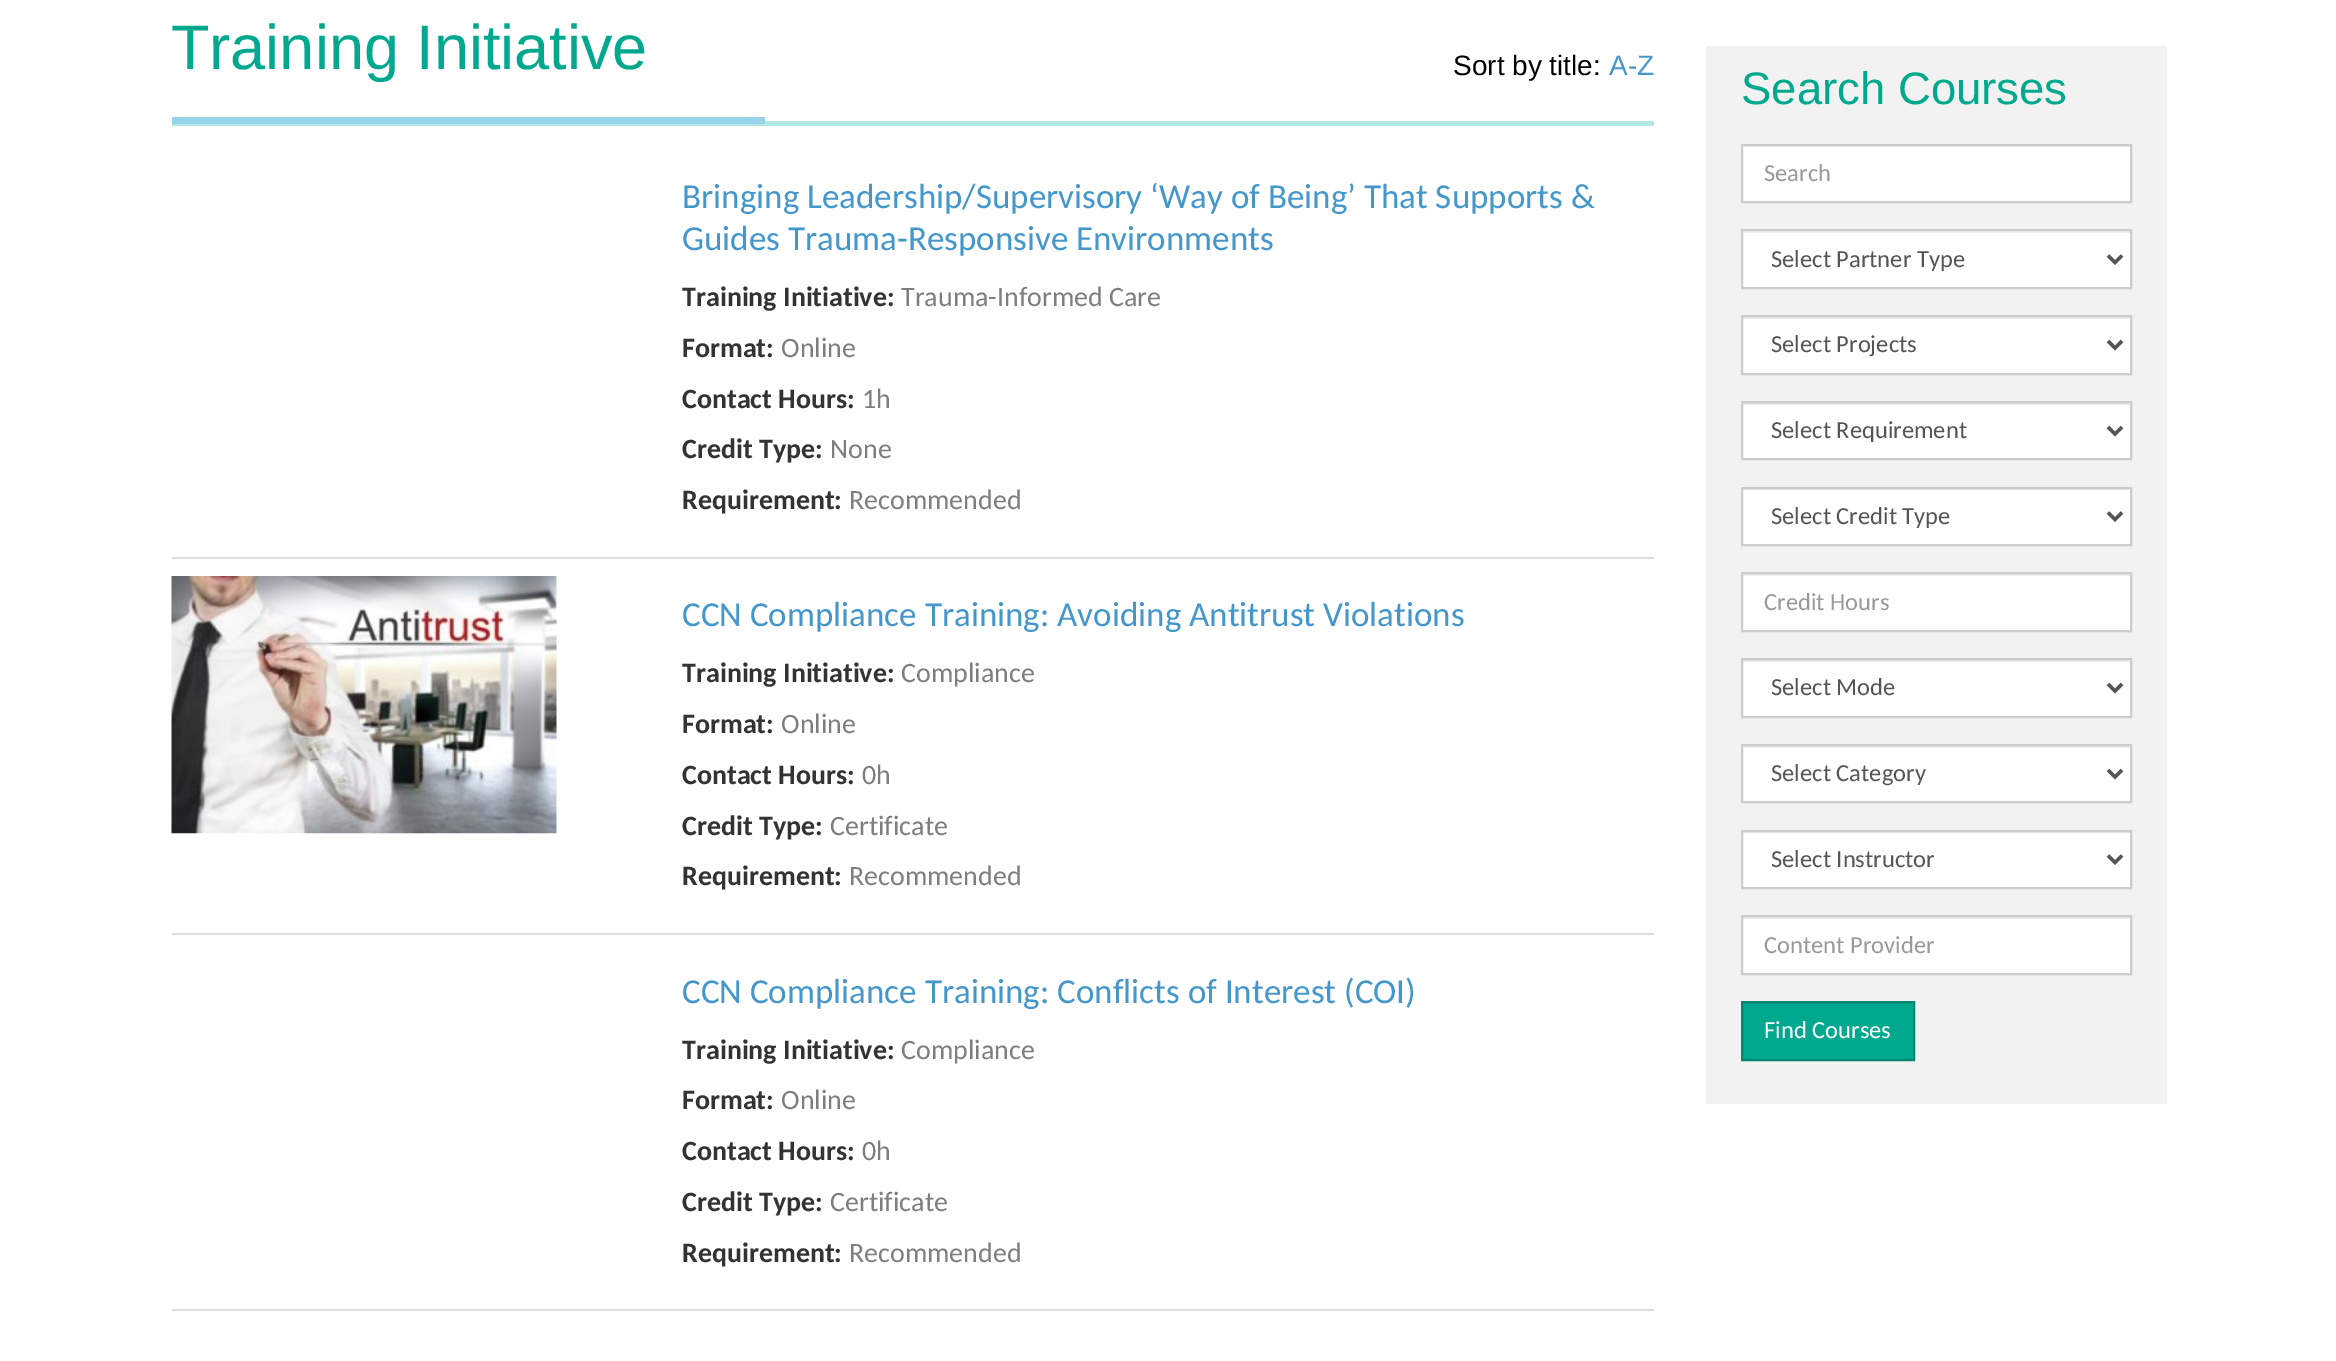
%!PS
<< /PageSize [2336 1361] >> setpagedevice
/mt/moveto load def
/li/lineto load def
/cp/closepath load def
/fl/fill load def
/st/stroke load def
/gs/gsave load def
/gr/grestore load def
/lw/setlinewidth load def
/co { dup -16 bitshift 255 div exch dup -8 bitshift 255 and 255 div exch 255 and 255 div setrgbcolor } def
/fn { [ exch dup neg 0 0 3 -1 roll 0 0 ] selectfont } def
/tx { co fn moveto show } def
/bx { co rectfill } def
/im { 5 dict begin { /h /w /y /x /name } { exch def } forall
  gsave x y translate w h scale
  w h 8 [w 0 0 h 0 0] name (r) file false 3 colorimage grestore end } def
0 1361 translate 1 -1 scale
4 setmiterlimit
0 0 2336 1361 16#FFFFFF bx
172 121 1482 5 16#B3E7E2 bx
172 117 593 7 16#97D4E9 bx
172 557 1482 2 16#DDDDDD bx
172 933 1482 2 16#DDDDDD bx
(media/1.raw) 171 576 386 258 im
172 1309 1482 2 16#DDDDDD bx
1706 46 461 1058 16#F2F2F2 bx
1743 147 387 54 16#FFFFFF bx
1743 146 387 1 16#ECECEC bx
16#CCCCCC co
2 lw
1742 145 389 57 rectstroke
1743 233 387 54 16#FFFFFF bx
1743 231 387 2 16#ECECEC bx
16#CCCCCC co
1742 230 389 58 rectstroke
16#555555 co
3.5 lw
2108 255.5 mt 2115 262.5 li 2122 255.5 li st
1743 319 387 54 16#FFFFFF bx
1743 317 387 2 16#ECECEC bx
16#CCCCCC co
2 lw
1742 316 389 58 rectstroke
16#555555 co
3.5 lw
2108 341 mt 2115 348 li 2122 341 li st
1743 405 387 53 16#FFFFFF bx
1743 403 387 2 16#ECECEC bx
16#CCCCCC co
2 lw
1742 402 389 57 rectstroke
16#555555 co
3.5 lw
2108 427 mt 2115 434 li 2122 427 li st
1743 490 387 54 16#FFFFFF bx
1743 489 387 1 16#ECECEC bx
16#CCCCCC co
2 lw
1742 488 389 57 rectstroke
16#555555 co
3.5 lw
2108 512.5 mt 2115 519.5 li 2122 512.5 li st
1743 576 387 54 16#FFFFFF bx
1743 574 387 2 16#ECECEC bx
16#CCCCCC co
2 lw
1742 573 389 58 rectstroke
1743 662 387 54 16#FFFFFF bx
1743 660 387 2 16#ECECEC bx
16#CCCCCC co
1742 659 389 58 rectstroke
16#555555 co
3.5 lw
2108 684 mt 2115 691 li 2122 684 li st
1743 748 387 53 16#FFFFFF bx
1743 746 387 2 16#ECECEC bx
16#CCCCCC co
2 lw
1742 745 389 57 rectstroke
16#555555 co
3.5 lw
2108 770 mt 2115 777 li 2122 770 li st
1743 833 387 54 16#FFFFFF bx
1743 832 387 1 16#ECECEC bx
16#CCCCCC co
2 lw
1742 831 389 57 rectstroke
16#555555 co
3.5 lw
2108 855.5 mt 2115 862.5 li 2122 855.5 li st
1743 919 387 54 16#FFFFFF bx
1743 917 387 2 16#ECECEC bx
16#CCCCCC co
2 lw
1742 916 389 58 rectstroke
16#00A98D co
1742 1002 mt 1914 1002 li 1914 1060 li 1742 1060 li cp gs fl gr
16#028670 co
st
(Training Initiative) 171 69 /LiberationSans-Regular 63 16#00A98D tx
(Sort by title:) 1453 75 /LiberationSans-Regular 28 16#000000 tx
(A-Z) 1609 75 /LiberationSans-Regular 28 16#4497CB tx
(Bringing Leadership/Supervisory ‘Way of Being’ That Supports &) 682 208 /Carlito-Regular 35 16#4497CB tx
(Guides Trauma-Responsive Environments) 682 250 /Carlito-Regular 35 16#4497CB tx
(Training Initiative:) 682 306 /Carlito-Bold 28 16#333333 tx
(Trauma-Informed Care) 901 306 /Carlito-Regular 28 16#7E7E7E tx
(Format:) 682 357 /Carlito-Bold 28 16#333333 tx
(Online) 781 357 /Carlito-Regular 28 16#7E7E7E tx
(Contact Hours:) 682 408 /Carlito-Bold 28 16#333333 tx
(1h) 862 408 /Carlito-Regular 28 16#7E7E7E tx
(Credit Type:) 682 458 /Carlito-Bold 28 16#333333 tx
(None) 830 458 /Carlito-Regular 28 16#7E7E7E tx
(Requirement:) 682 509 /Carlito-Bold 28 16#333333 tx
(Recommended) 849 509 /Carlito-Regular 28 16#7E7E7E tx
(CCN Compliance Training: Avoiding Antitrust Violations) 682 626 /Carlito-Regular 35 16#4497CB tx
(Training Initiative:) 682 682 /Carlito-Bold 28 16#333333 tx
(Compliance) 901 682 /Carlito-Regular 28 16#7E7E7E tx
(Format:) 682 733 /Carlito-Bold 28 16#333333 tx
(Online) 781 733 /Carlito-Regular 28 16#7E7E7E tx
(Contact Hours:) 682 784 /Carlito-Bold 28 16#333333 tx
(0h) 862 784 /Carlito-Regular 28 16#7E7E7E tx
(Credit Type:) 682 835 /Carlito-Bold 28 16#333333 tx
(Certificate) 830 835 /Carlito-Regular 28 16#7E7E7E tx
(Requirement:) 682 885 /Carlito-Bold 28 16#333333 tx
(Recommended) 849 885 /Carlito-Regular 28 16#7E7E7E tx
(CCN Compliance Training: Conflicts of Interest \(COI\)) 682 1003 /Carlito-Regular 35 16#4497CB tx
(Training Initiative:) 682 1059 /Carlito-Bold 28 16#333333 tx
(Compliance) 901 1059 /Carlito-Regular 28 16#7E7E7E tx
(Format:) 682 1109 /Carlito-Bold 28 16#333333 tx
(Online) 781 1109 /Carlito-Regular 28 16#7E7E7E tx
(Contact Hours:) 682 1160 /Carlito-Bold 28 16#333333 tx
(0h) 862 1160 /Carlito-Regular 28 16#7E7E7E tx
(Credit Type:) 682 1211 /Carlito-Bold 28 16#333333 tx
(Certificate) 830 1211 /Carlito-Regular 28 16#7E7E7E tx
(Requirement:) 682 1262 /Carlito-Bold 28 16#333333 tx
(Recommended) 849 1262 /Carlito-Regular 28 16#7E7E7E tx
(Search Courses) 1741 104 /LiberationSans-Regular 45.5 16#00A98D tx
(Search) 1764 181 /Carlito-Regular 24.5 16#999999 tx
(Select Partner Type) 1771 267 /Carlito-Regular 24.5 16#555555 tx
(Select Projects) 1771 352 /Carlito-Regular 24.5 16#555555 tx
(Select Requirement) 1771 438 /Carlito-Regular 24.5 16#555555 tx
(Select Credit Type) 1771 524 /Carlito-Regular 24.5 16#555555 tx
(Credit Hours) 1764 610 /Carlito-Regular 24.5 16#999999 tx
(Select Mode) 1771 695 /Carlito-Regular 24.5 16#555555 tx
(Select Category) 1771 781 /Carlito-Regular 24.5 16#555555 tx
(Select Instructor) 1771 867 /Carlito-Regular 24.5 16#555555 tx
(Content Provider) 1764 953 /Carlito-Regular 24.5 16#999999 tx
(Find Courses) 1764 1038 /Carlito-Regular 24.5 16#FFFFFF tx
showpage
